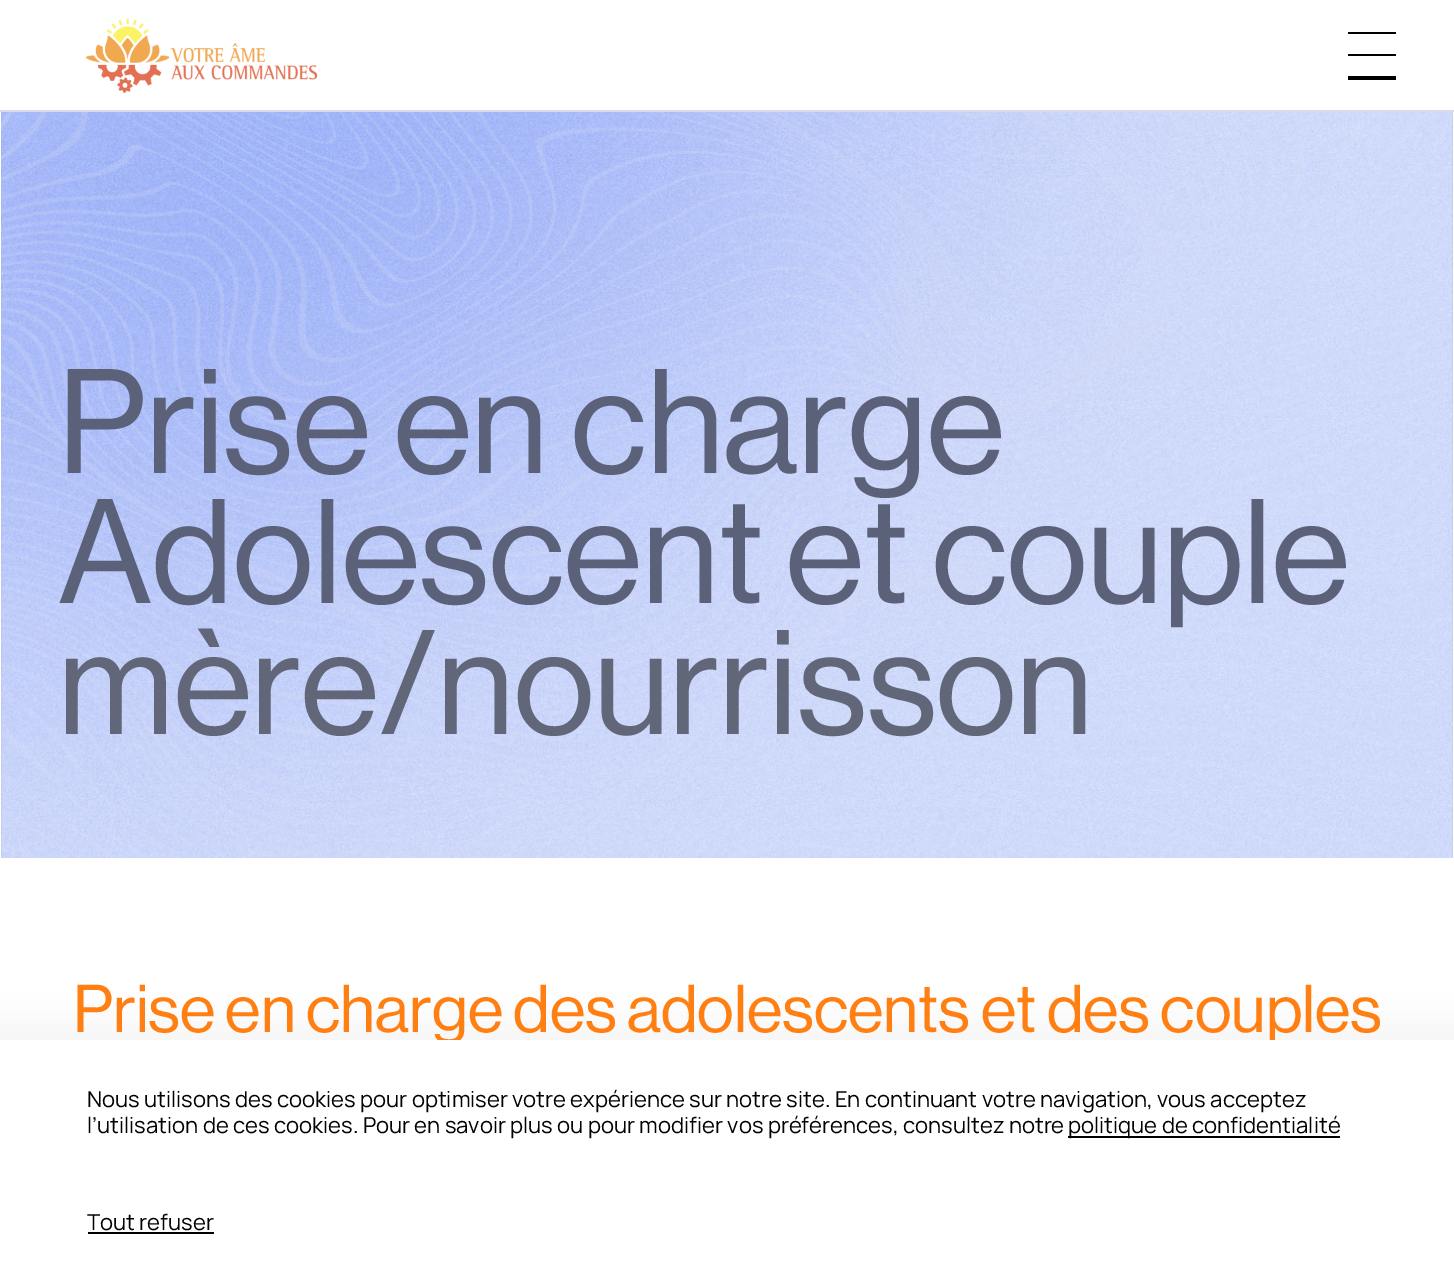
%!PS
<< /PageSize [1454 1278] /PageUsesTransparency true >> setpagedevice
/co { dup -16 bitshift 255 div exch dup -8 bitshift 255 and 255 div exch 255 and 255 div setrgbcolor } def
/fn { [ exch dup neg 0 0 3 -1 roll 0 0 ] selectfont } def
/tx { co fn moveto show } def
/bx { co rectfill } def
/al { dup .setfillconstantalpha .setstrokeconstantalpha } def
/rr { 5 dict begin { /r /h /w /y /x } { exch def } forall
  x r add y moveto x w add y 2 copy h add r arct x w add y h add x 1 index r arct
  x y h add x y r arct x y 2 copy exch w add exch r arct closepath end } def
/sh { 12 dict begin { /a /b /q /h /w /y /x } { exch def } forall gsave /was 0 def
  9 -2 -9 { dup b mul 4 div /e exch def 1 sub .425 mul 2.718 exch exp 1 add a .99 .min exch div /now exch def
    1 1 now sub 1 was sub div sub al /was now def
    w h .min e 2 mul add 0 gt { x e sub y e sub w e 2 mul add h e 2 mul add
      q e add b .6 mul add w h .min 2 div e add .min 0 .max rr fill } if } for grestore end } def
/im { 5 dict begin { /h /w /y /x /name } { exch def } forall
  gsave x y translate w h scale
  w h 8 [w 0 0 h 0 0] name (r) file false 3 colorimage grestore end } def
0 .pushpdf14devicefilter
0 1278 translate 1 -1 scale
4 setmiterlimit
0 0 1454 1278 16#FFFFFF bx
0 110 1454 2 16#D9DBE9 bx
(media/1.raw) 85 18 233 75 im
1348 32 48 2 16#000000 bx
1348 54 48 2 16#000000 bx
1348 76 48 4 16#000000 bx
(media/2.raw) 1 112 1452 746 im
-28 1016 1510 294 0 20 .04 sh
(Prise en charge) 58 473 /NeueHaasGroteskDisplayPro-Regular 145.5 16#5B6178 tx
(Adolescent et couple) 58 603 /NeueHaasGroteskDisplayPro-Regular 145.5 16#5B6178 tx
(mère/nourrisson) 58 734 /NeueHaasGroteskDisplayPro-Regular 145.5 16#616778 tx
(Prise en charge des adolescents et des couples) 73 1032 /NeueHaasGroteskDisplayPro-Regular 66.1 16#FF7F12 tx
0 1040 1454 238 16#FFFFFF bx
(Nous utilisons des cookies pour optimiser votre expérience sur notre site. En continuant votre navigation, vous acceptez) 87 1107 /Manrope-Regular 22.02 16#000000 tx
(l’utilisation de ces cookies. Pour en savoir plus ou pour modifier vos préférences, consultez notre) 87 1133 /Manrope-Regular 22.02 16#000000 tx
1068 1136 272 2 16#000000 bx
(politique de confidentialité) 1068 1133 /Manrope-Regular 22.02 16#000000 tx
(Tout refuser) 87 1230 /Manrope-Regular 22.02 16#000000 tx
88 1232 126 2 16#000000 bx
.poppdf14devicefilter showpage
